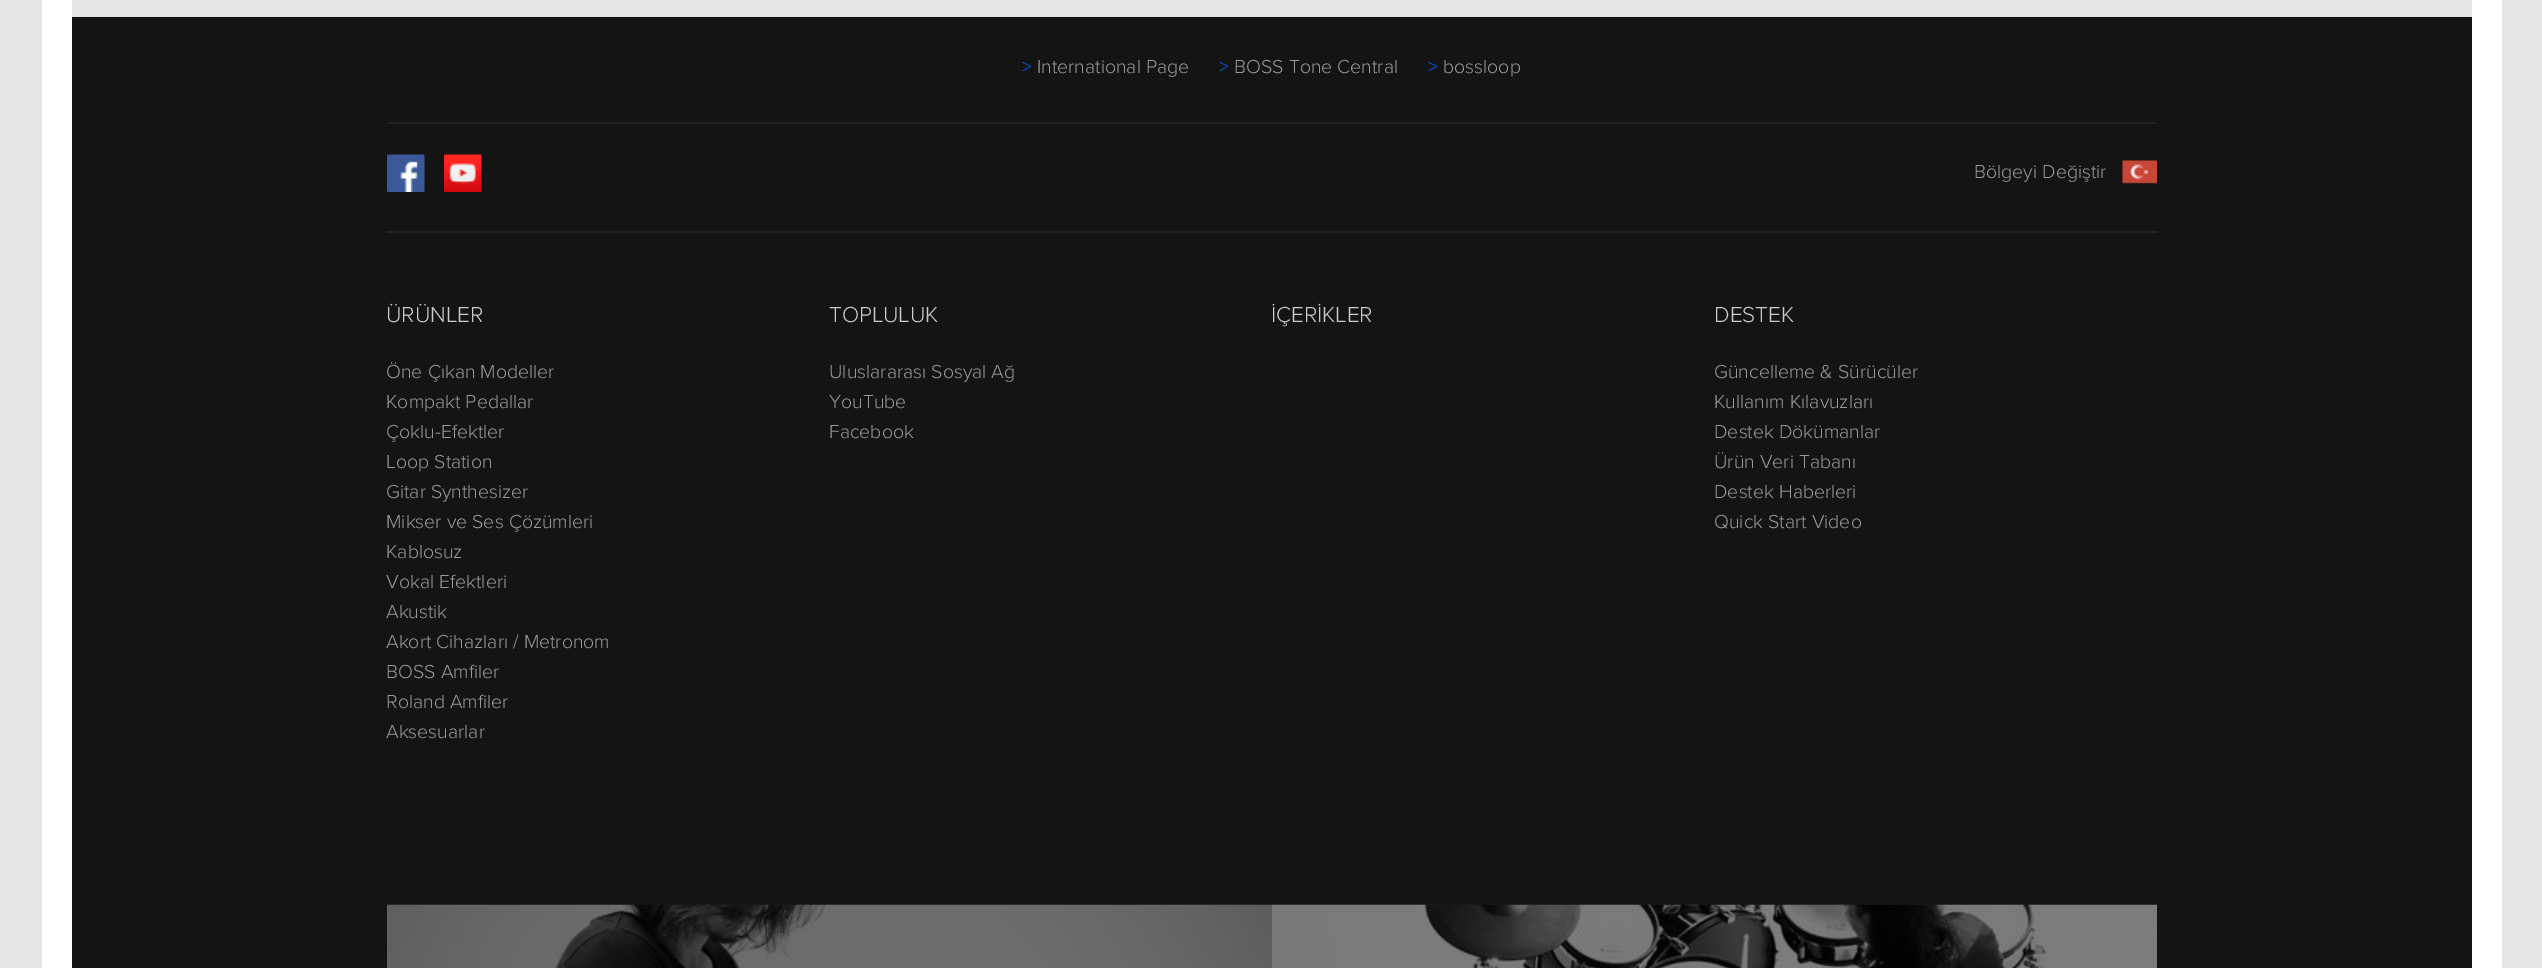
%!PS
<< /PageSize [2542 968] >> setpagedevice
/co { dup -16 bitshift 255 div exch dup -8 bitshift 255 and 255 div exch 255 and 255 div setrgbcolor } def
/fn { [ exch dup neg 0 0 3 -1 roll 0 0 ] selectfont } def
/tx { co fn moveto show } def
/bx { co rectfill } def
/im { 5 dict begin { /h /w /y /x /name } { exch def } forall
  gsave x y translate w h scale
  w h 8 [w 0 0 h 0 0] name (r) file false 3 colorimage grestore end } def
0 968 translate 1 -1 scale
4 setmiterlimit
0 0 2542 968 16#E5E5E5 bx
42 0 2460 968 16#FFFFFF bx
72 0 2400 17 16#E5E5E5 bx
72 17 2400 951 16#141414 bx
387 122 1770 2 16#212121 bx
387 231 1770 2 16#212121 bx
(media/1.raw) 387 154 38 38 im
(media/2.raw) 444 154 38 38 im
(media/3.raw) 2122 160 35 24 im
387 905 1770 63 16#000000 bx
(media/4.raw) 387 904 885 64 im
(media/5.raw) 1272 904 885 64 im
(>) 1022 73 /ProximaNova-Light 19.5 16#0064FF tx
(International Page) 1037 73 /ProximaNova-Light 19.5 16#999999 tx
(>) 1219 73 /ProximaNova-Light 19.5 16#0064FF tx
(BOSS Tone Central) 1234 73 /ProximaNova-Light 19.5 16#999999 tx
(>) 1428 73 /ProximaNova-Light 19.5 16#0064FF tx
(bossloop) 1443 73 /ProximaNova-Light 19.5 16#999999 tx
(Bölgeyi Değiştir) 1974 178 /ProximaNova-Light 19.5 16#999999 tx
(ÜRÜNLER) 386 322 /ProximaNova-Light 22.5 16#CCCCCC tx
(Öne Çıkan Modeller) 386 378 /ProximaNova-Light 19.5 16#999999 tx
(Kompakt Pedallar) 386 408 /ProximaNova-Light 19.5 16#999999 tx
(Çoklu-Efektler) 386 438 /ProximaNova-Light 19.5 16#999999 tx
(Loop Station) 386 468 /ProximaNova-Light 19.5 16#999999 tx
(Gitar Synthesizer) 386 498 /ProximaNova-Light 19.5 16#999999 tx
(Mikser ve Ses Çözümleri) 386 528 /ProximaNova-Light 19.5 16#999999 tx
(Kablosuz) 386 558 /ProximaNova-Light 19.5 16#999999 tx
(Vokal Efektleri) 386 588 /ProximaNova-Light 19.5 16#999999 tx
(Akustik) 386 618 /ProximaNova-Light 19.5 16#999999 tx
(Akort Cihazları / Metronom) 386 648 /ProximaNova-Light 19.5 16#999999 tx
(BOSS Amfiler) 386 678 /ProximaNova-Light 19.5 16#999999 tx
(Roland Amfiler) 386 708 /ProximaNova-Light 19.5 16#999999 tx
(Aksesuarlar) 386 738 /ProximaNova-Light 19.5 16#999999 tx
(TOPLULUK) 829 322 /ProximaNova-Light 22.5 16#CCCCCC tx
(Uluslararası Sosyal Ağ) 829 378 /ProximaNova-Light 19.5 16#999999 tx
(YouTube) 829 408 /ProximaNova-Light 19.5 16#999999 tx
(Facebook) 829 438 /ProximaNova-Light 19.5 16#999999 tx
(İÇERİKLER) 1271 322 /ProximaNova-Light 22.5 16#CCCCCC tx
(DESTEK) 1714 322 /ProximaNova-Light 22.5 16#CCCCCC tx
(Güncelleme & Sürücüler) 1714 378 /ProximaNova-Light 19.5 16#999999 tx
(Kullanım Kılavuzları) 1714 408 /ProximaNova-Light 19.5 16#999999 tx
(Destek Dökümanlar) 1714 438 /ProximaNova-Light 19.5 16#999999 tx
(Ürün Veri Tabanı) 1714 468 /ProximaNova-Light 19.5 16#999999 tx
(Destek Haberleri) 1714 498 /ProximaNova-Light 19.5 16#999999 tx
(Quick Start Video) 1714 528 /ProximaNova-Light 19.5 16#999999 tx
showpage
